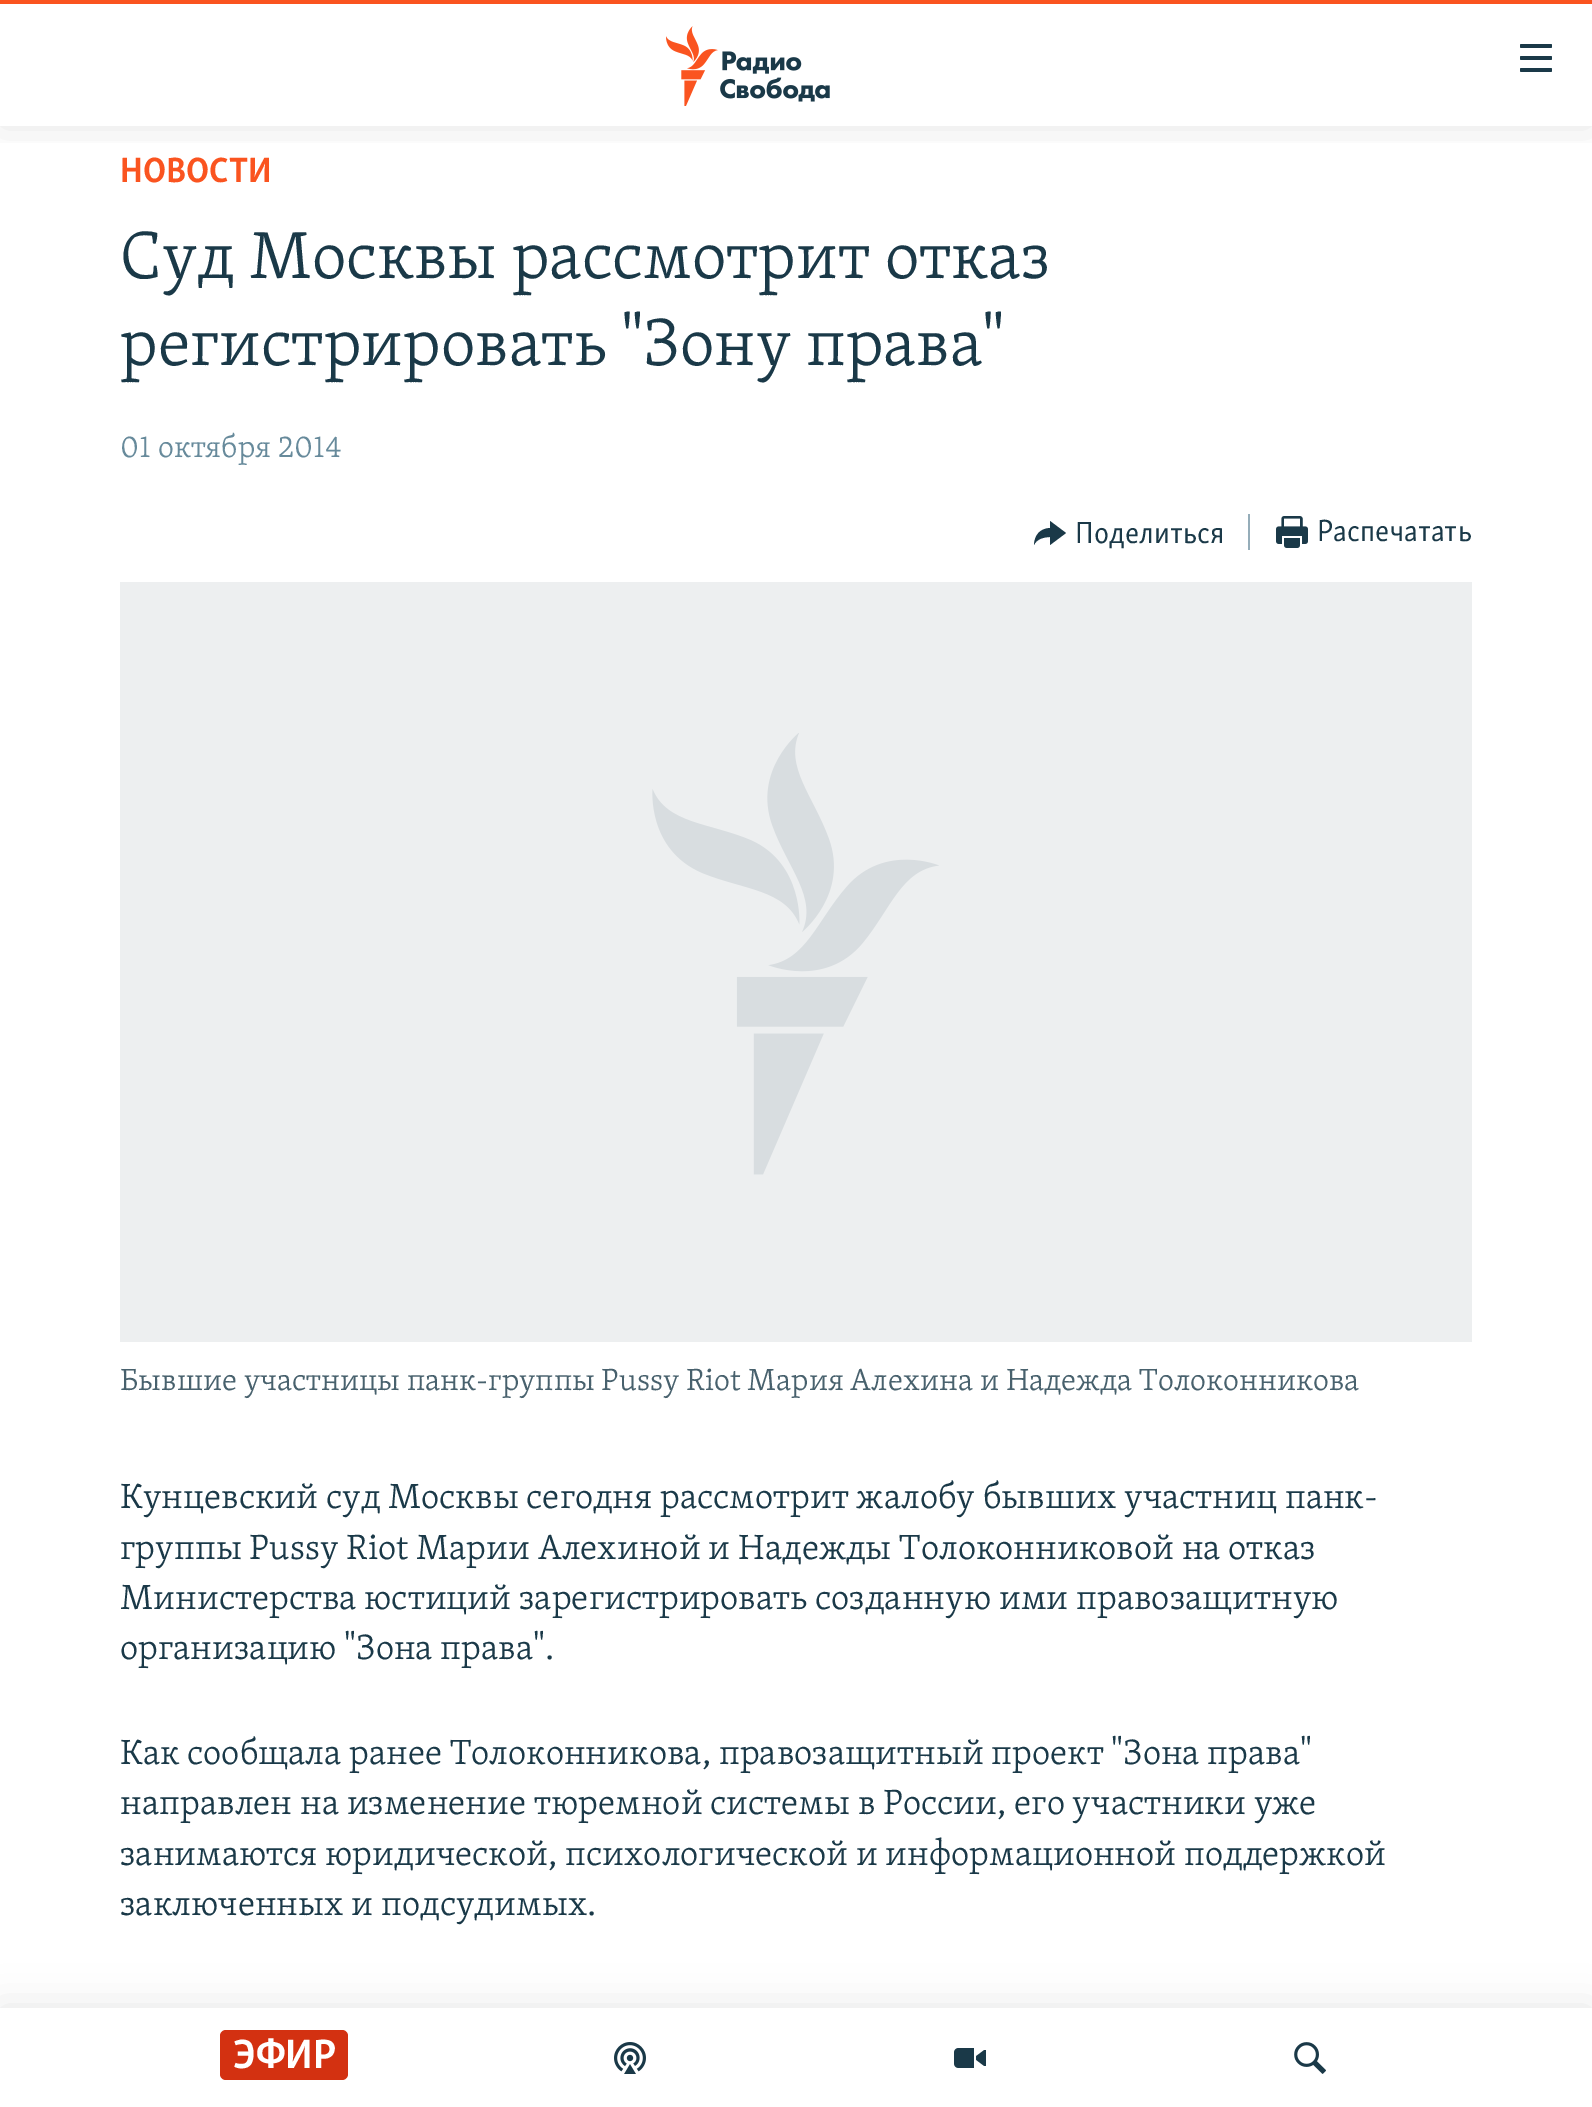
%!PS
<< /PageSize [1592 2107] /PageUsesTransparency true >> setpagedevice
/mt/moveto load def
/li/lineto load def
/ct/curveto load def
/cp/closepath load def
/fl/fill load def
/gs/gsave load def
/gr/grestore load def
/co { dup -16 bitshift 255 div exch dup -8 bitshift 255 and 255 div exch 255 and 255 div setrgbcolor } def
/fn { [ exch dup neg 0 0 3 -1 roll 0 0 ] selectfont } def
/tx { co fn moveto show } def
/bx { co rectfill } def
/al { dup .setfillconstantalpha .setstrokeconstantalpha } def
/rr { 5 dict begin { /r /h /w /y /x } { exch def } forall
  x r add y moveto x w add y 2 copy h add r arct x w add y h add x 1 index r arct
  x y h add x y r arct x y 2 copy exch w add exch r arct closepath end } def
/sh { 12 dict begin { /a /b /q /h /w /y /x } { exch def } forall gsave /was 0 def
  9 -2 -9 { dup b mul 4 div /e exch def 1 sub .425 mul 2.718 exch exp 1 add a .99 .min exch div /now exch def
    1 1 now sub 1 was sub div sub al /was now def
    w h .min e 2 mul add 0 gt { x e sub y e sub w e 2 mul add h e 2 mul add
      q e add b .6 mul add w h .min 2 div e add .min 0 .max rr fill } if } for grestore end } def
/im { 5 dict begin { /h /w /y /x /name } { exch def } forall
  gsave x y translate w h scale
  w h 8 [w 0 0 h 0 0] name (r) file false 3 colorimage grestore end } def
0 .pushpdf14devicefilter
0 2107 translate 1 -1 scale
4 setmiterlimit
0 0 1592 2107 16#FFFFFF bx
16#1A3948 co
1034 545 mt 1034.5 535 1040 528.5 1050 528 ct 1050 521 li 1066 533 li 1050 545 li 1050 537 li 1044 537 1036.5 539 1034 545 ct cp fl
1248 514 2 36 16#95ADB9 bx
(media/1.raw) 1276 516 32 32 im
120 582 1352 760 16#EDEFF0 bx
(media/2.raw) 652 733 287 442 im
gs
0 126 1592 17 rectclip
16#000000 co
0 0 1592 126 0 20 .1 sh
gr
0 0 1592 4 16#FA5420 bx
(media/3.raw) 666 26 164 80 im
(media/4.raw) 1520 44 32 28 im
16#000000 co
0 2008 1592 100 0 20 .1 sh
0 2008 1592 99 16#FFFFFF bx
16#D33111 co
220 2030 128 50 6 rr fl
(media/5.raw) 614 2042 32 32 im
(media/6.raw) 954 2048 32 20 im
(media/7.raw) 1294 2042 32 32 im
(НОВОСТИ) 120 182 /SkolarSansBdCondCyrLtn-Bold 36 16#FA5420 tx
(Суд Москвы рассмотрит отказ) 120 278 /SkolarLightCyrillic-Light 68.4 16#1A3948 tx
(регистрировать "Зону права") 120 365 /SkolarLightCyrillic-Light 68.4 16#1A3948 tx
(01 октября 2014) 120 457 /SkolarLightCyrillic-Light 31.5 16#678A9B tx
(Поделиться) 1075 543 /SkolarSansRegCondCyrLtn-Regular 31.5 16#1A3948 tx
(Распечатать) 1317 541 /SkolarSansRegCondCyrLtn-Regular 31.5 16#1A3948 tx
(Бывшие участницы панк-группы Pussy Riot Мария Алехина и Надежда Толоконникова) 120 1390 /SkolarLightCyrillic-Light 31.5 16#48616D tx
(Кунцевский суд Москвы сегодня рассмотрит жалобу бывших участниц панк-) 120 1508 /SkolarLightCyrillic-Light 36 16#1A3948 tx
(группы Pussy Riot Марии Алехиной и Надежды Толоконниковой на отказ) 120 1559 /SkolarLightCyrillic-Light 36 16#1A3948 tx
(Министерства юстиций зарегистрировать созданную ими правозащитную) 120 1609 /SkolarLightCyrillic-Light 36 16#1A3948 tx
(организацию "Зона права".) 120 1659 /SkolarLightCyrillic-Light 36 16#1A3948 tx
(Как сообщала ранее Толоконникова, правозащитный проект "Зона права") 120 1764 /SkolarLightCyrillic-Light 36 16#1A3948 tx
(направлен на изменение тюремной системы в России, его участники уже) 120 1814 /SkolarLightCyrillic-Light 36 16#1A3948 tx
(занимаются юридической, психологической и информационной поддержкой) 120 1865 /SkolarLightCyrillic-Light 36 16#1A3948 tx
(заключенных и подсудимых.) 120 1915 /SkolarLightCyrillic-Light 36 16#1A3948 tx
(ЭФИР) 233 2068 /SkolarSansBdCondCyrLtn-Bold 42 16#FFFFFF tx
.poppdf14devicefilter showpage
